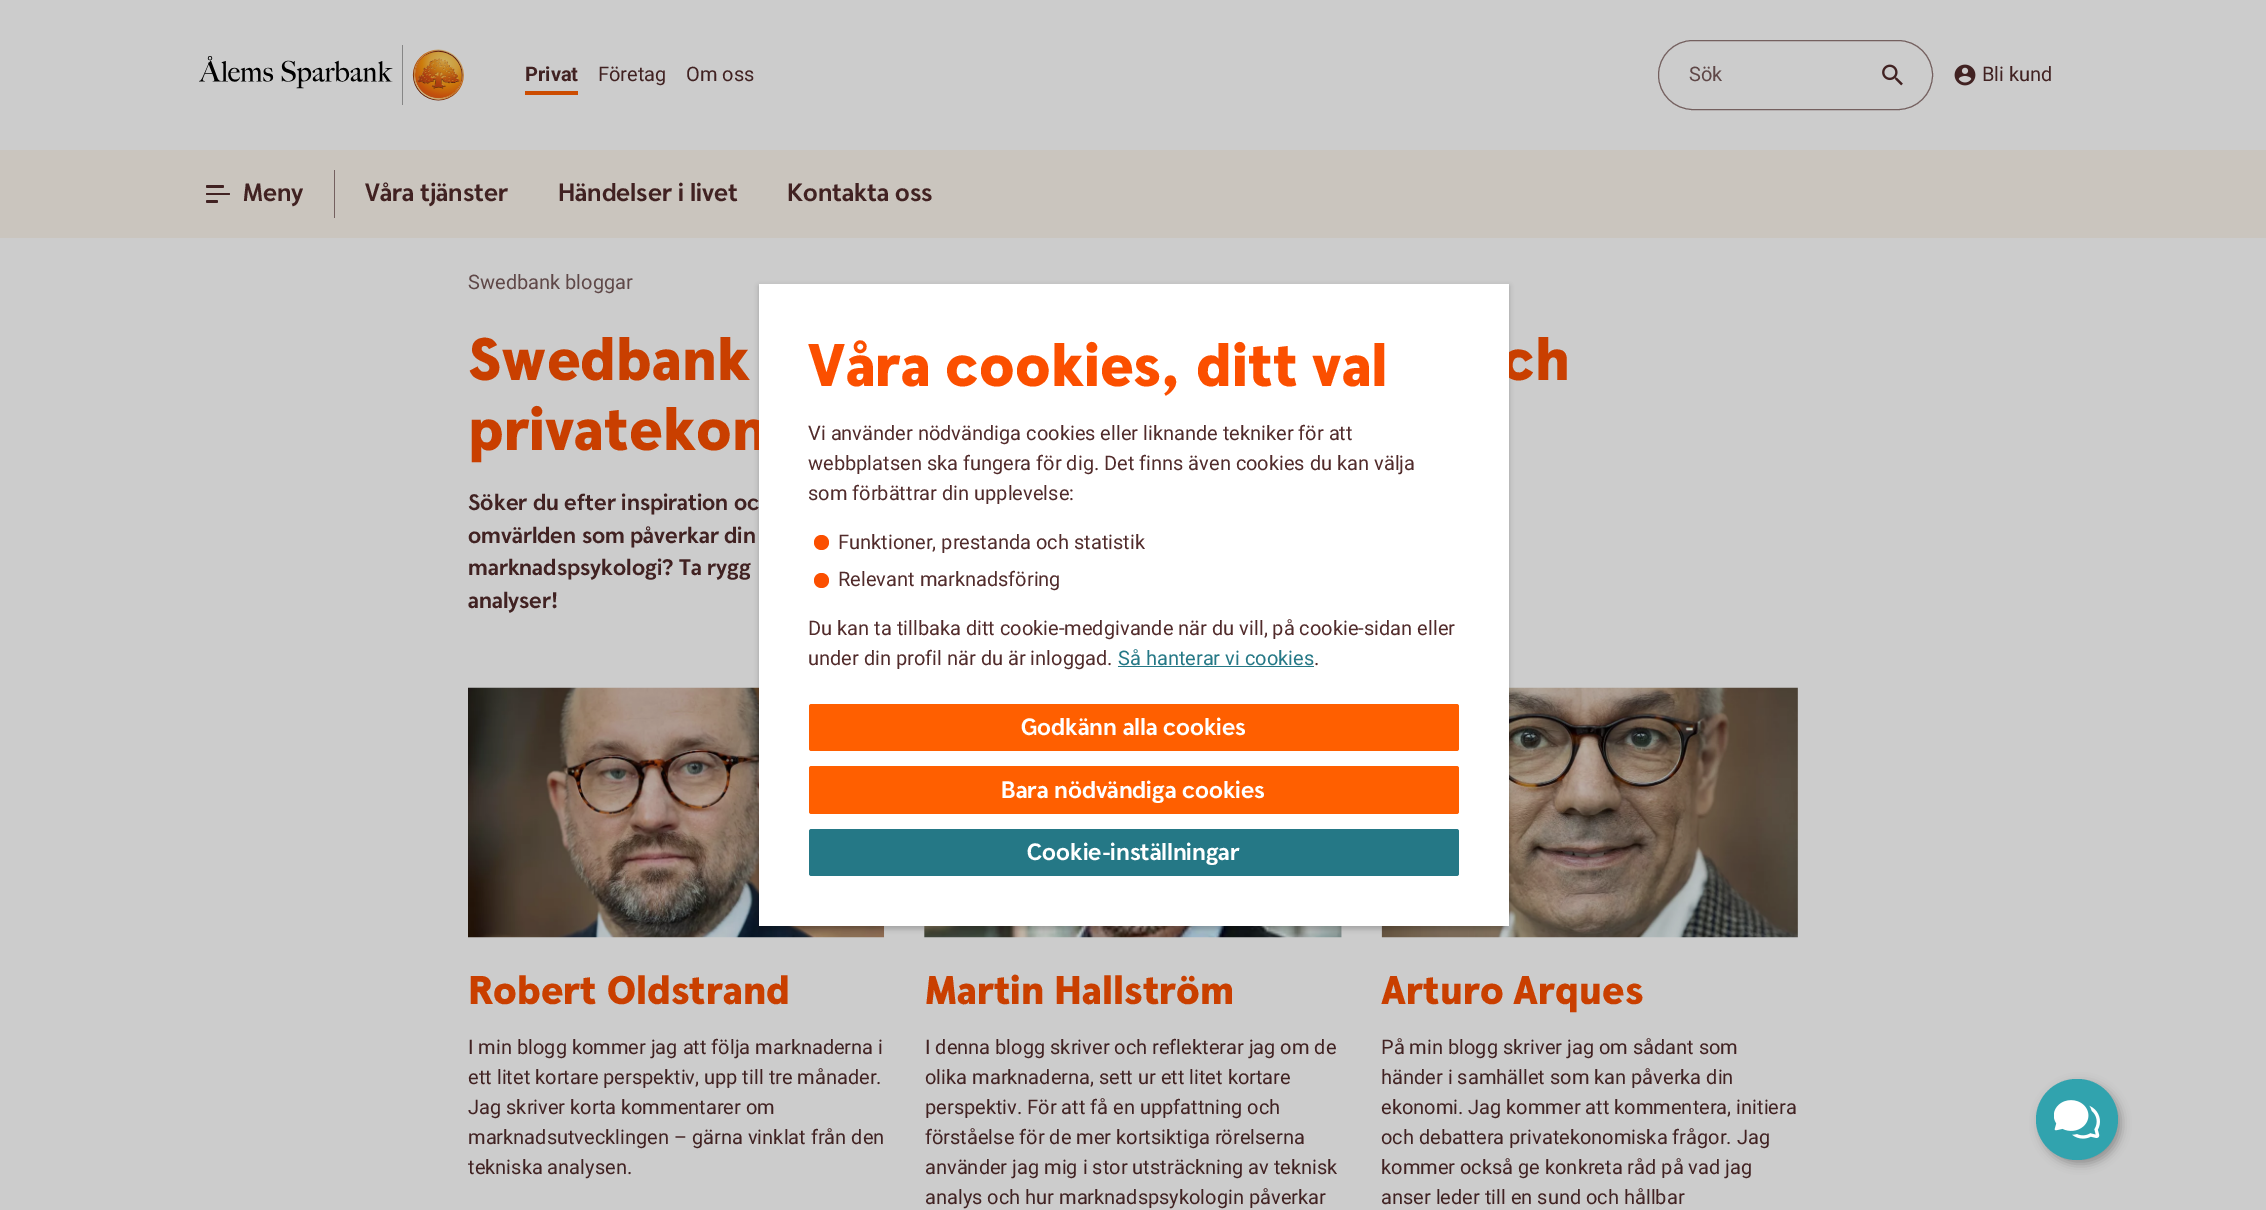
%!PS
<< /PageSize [2266 1210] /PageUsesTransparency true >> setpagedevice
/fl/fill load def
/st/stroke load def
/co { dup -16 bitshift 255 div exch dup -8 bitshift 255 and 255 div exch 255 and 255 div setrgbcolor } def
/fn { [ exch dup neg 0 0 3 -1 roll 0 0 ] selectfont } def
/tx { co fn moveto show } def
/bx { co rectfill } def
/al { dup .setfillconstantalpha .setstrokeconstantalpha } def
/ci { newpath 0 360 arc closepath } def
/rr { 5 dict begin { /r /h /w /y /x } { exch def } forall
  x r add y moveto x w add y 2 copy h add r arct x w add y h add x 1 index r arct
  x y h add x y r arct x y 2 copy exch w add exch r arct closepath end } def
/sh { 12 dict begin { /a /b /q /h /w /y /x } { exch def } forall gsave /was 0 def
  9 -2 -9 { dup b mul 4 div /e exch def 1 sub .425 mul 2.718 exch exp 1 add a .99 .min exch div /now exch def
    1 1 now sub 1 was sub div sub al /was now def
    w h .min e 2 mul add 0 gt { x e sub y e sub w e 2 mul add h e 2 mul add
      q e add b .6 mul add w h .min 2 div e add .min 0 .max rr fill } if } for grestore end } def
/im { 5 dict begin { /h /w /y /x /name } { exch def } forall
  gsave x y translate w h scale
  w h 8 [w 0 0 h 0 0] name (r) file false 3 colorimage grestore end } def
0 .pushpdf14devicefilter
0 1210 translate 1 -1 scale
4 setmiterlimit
0 0 2266 1210 16#CCCCCC bx
(media/1.raw) 199 45 265 60 im
525 91 53 4 16#CC4C00 bx
16#74605F co
1658.5 40.5 274 69 34.5 rr st
(media/2.raw) 1882 64 21 22 im
(media/3.raw) 1954 64 22 22 im
0 150 2266 88 16#CAC5BE bx
16#412222 co
206 185 18 3 1.5 rr fl
206 193 24 2 1 rr fl
206 200 12 3 1.5 rr fl
334 170 1 48 16#74605F bx
(media/4.raw) 468 687 417 251 im
(media/5.raw) 924 926 418 12 im
(media/6.raw) 1381 687 417 251 im
16#000000 co
759 286 750 643 0 2.5 .2 sh
16#908E8E co
2040 1083 81 81 40.5 5 1 sh
16#31A3AE co
2036 1079 82 81 40.5 rr fl
(media/7.raw) 2054 1100 46 39 im
(Privat) 525 81 /Roboto-Bold 20 16#412222 tx
(Företag) 598 81 /Roboto-Regular 20 16#412222 tx
(Om oss) 686 81 /Roboto-Regular 20 16#412222 tx
(Sök) 1689 81 /Roboto-Regular 20 16#5F4848 tx
(Bli kund) 1982 81 /Roboto-Regular 20 16#412222 tx
(Meny) 243 201 /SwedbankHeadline-Bold 25 16#412222 tx
(Våra tjänster) 365 201 /SwedbankHeadline-Bold 25 16#412222 tx
(Händelser i livet) 558 201 /SwedbankHeadline-Bold 25 16#412222 tx
(Kontakta oss) 787 201 /SwedbankHeadline-Bold 25 16#412222 tx
(Swedbank bloggar) 468 289 /Roboto-Regular 20 16#5F4848 tx
(Swedbank) 468 380 /SwedbankHeadline-Black 60 16#C93F00 tx
(ch) 1501 380 /SwedbankHeadline-Black 60 16#C93F00 tx
(privatekon) 468 450 /SwedbankHeadline-Black 60 16#C93F00 tx
(Söker du efter inspiration oc) 468 510 /SwedbankHeadline-Bold 22.5 16#412222 tx
(omvärlden som påverkar din) 468 543 /SwedbankHeadline-Bold 22.5 16#412222 tx
(marknadspsykologi? Ta rygg) 468 575 /SwedbankHeadline-Bold 22.5 16#412222 tx
(analyser!) 468 608 /SwedbankHeadline-Bold 22.5 16#412222 tx
(Robert Oldstrand) 468 1004 /SwedbankHeadline-Black 40 16#C93F00 tx
(I min blogg kommer jag att följa marknaderna i) 468 1054 /Roboto-Regular 20 16#412222 tx
(ett litet kortare perspektiv, upp till tre månader.) 468 1084 /Roboto-Regular 20 16#412222 tx
(Jag skriver korta kommentarer om) 468 1114 /Roboto-Regular 20 16#412222 tx
(marknadsutvecklingen – gärna vinklat från den) 468 1144 /Roboto-Regular 20 16#412222 tx
(tekniska analysen.) 468 1174 /Roboto-Regular 20 16#412222 tx
(Martin Hallström) 925 1004 /SwedbankHeadline-Black 40 16#C93F00 tx
(I denna blogg skriver och reflekterar jag om de) 925 1054 /Roboto-Regular 20 16#412222 tx
(olika marknaderna, sett ur ett litet kortare) 925 1084 /Roboto-Regular 20 16#412222 tx
(perspektiv. För att få en uppfattning och) 925 1114 /Roboto-Regular 20 16#412222 tx
(förståelse för de mer kortsiktiga rörelserna) 925 1144 /Roboto-Regular 20 16#412222 tx
(använder jag mig i stor utsträckning av teknisk) 925 1174 /Roboto-Regular 20 16#412222 tx
(analys och hur marknadspsykologin påverkar) 925 1204 /Roboto-Regular 20 16#412222 tx
(Arturo Arques) 1381 1004 /SwedbankHeadline-Black 40 16#C93F00 tx
(På min blogg skriver jag om sådant som) 1381 1054 /Roboto-Regular 20 16#412222 tx
(händer i samhället som kan påverka din) 1381 1084 /Roboto-Regular 20 16#412222 tx
(ekonomi. Jag kommer att kommentera, initiera) 1381 1114 /Roboto-Regular 20 16#412222 tx
(och debattera privatekonomiska frågor. Jag) 1381 1144 /Roboto-Regular 20 16#412222 tx
(kommer också ge konkreta råd på vad jag) 1381 1174 /Roboto-Regular 20 16#412222 tx
(anser leder till en sund och hållbar) 1381 1204 /Roboto-Regular 20 16#412222 tx
759 284 750 642 16#FFFFFF bx
(Våra cookies, ditt val) 808 386 /SwedbankHeadline-Black 60 16#FB4F00 tx
(Vi använder nödvändiga cookies eller liknande tekniker för att) 808 440 /Roboto-Regular 20 16#512B2B tx
(webbplatsen ska fungera för dig. Det finns även cookies du kan välja) 808 470 /Roboto-Regular 20 16#512B2B tx
(som förbättrar din upplevelse:) 808 500 /Roboto-Regular 20 16#512B2B tx
16#FB4F00 co
821.5 542.5 7.5 ci fl
(Funktioner, prestanda och statistik) 838 549 /Roboto-Regular 20 16#512B2B tx
16#FB4F00 co
821.5 580.5 7.5 ci fl
(Relevant marknadsföring) 838 586 /Roboto-Regular 20 16#512B2B tx
(Du kan ta tillbaka ditt cookie-medgivande när du vill, på cookie-sidan eller) 808 635 /Roboto-Regular 20 16#512B2B tx
(under din profil när du är inloggad.) 808 665 /Roboto-Regular 20 16#512B2B tx
(Så hanterar vi cookies) 1118 665 /Roboto-Regular 20 16#257886 tx
1118 666 196 1 16#257886 bx
(.) 1314 665 /Roboto-Regular 20 16#512B2B tx
16#FF5F00 co
809 704 650 47 2.5 rr fl
(Godkänn alla cookies) 1021 735 /SwedbankHeadline-Bold 23.75 16#FFFFFF tx
16#FF5F00 co
809 766 650 48 2.5 rr fl
(Bara nödvändiga cookies) 1001 798 /SwedbankHeadline-Bold 23.75 16#FFFFFF tx
16#257886 co
809 829 650 47 2.5 rr fl
(Cookie-inställningar) 1027 860 /SwedbankHeadline-Bold 23.75 16#FFFFFF tx
.poppdf14devicefilter showpage
